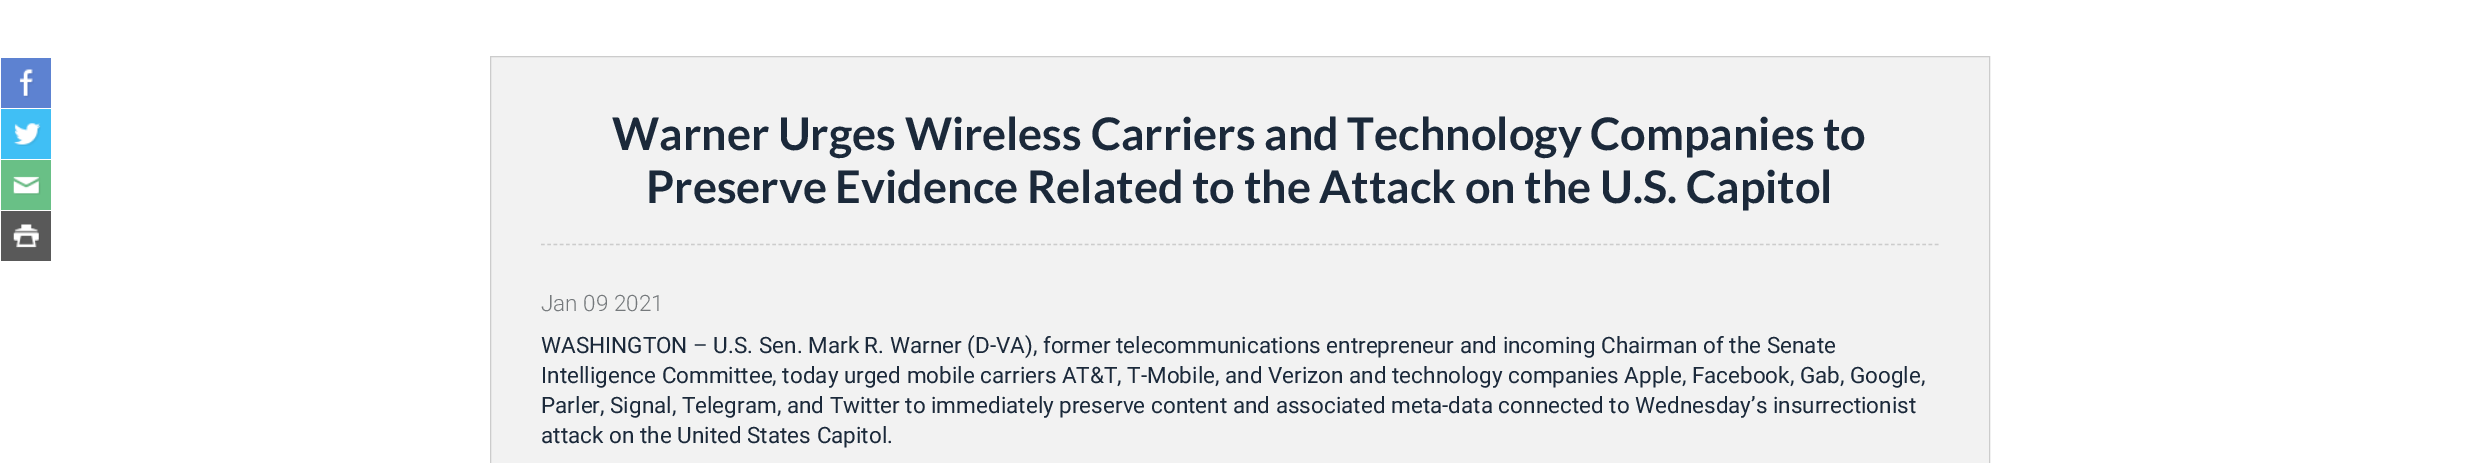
%!PS
<< /PageSize [2478 463] >> setpagedevice
/mt/moveto load def
/li/lineto load def
/cp/closepath load def
/fl/fill load def
/st/stroke load def
/gs/gsave load def
/gr/grestore load def
/lw/setlinewidth load def
/co { dup -16 bitshift 255 div exch dup -8 bitshift 255 and 255 div exch 255 and 255 div setrgbcolor } def
/fn { [ exch dup neg 0 0 3 -1 roll 0 0 ] selectfont } def
/tx { co fn moveto show } def
/bx { co rectfill } def
/im { 5 dict begin { /h /w /y /x /name } { exch def } forall
  gsave x y translate w h scale
  w h 8 [w 0 0 h 0 0] name (r) file false 3 colorimage grestore end } def
0 463 translate 1 -1 scale
4 setmiterlimit
0 0 2478 463 16#FFFFFF bx
16#F2F2F2 co
490.5 56.5 mt 1989.5 56.5 li 1989.5 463.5 li 490.5 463.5 li cp gs fl gr
16#CCCCCC co
st
1 58 50 50 16#5D82D1 bx
(media/1.raw) 19 69 15 29 im
1 109 50 50 16#40BFF5 bx
(media/2.raw) 13 123 28 23 im
1 160 50 50 16#69C086 bx
(media/3.raw) 13 176 28 19 im
1 211 50 50 16#595959 bx
(media/4.raw) 13 224 27 24 im
16#CCCCCC co
1.2 lw
[3.75 2.5] 0 setdash
541 244.5 mt 1939 244.5 li st
(Warner Urges Wireless Carriers and Technology Companies to) 612 150 /Lato-Bold 45 16#1B293A tx
(Preserve Evidence Related to the Attack on the U.S. Capitol) 646 203 /Lato-Bold 45 16#1B293A tx
(Jan 09 2021) 541 311 /Roboto-Light 22.5 16#75797C tx
(WASHINGTON – U.S. Sen. Mark R. Warner \(D-VA\), former telecommunications entrepreneur and incoming Chairman of the Senate) 541 353 /Roboto-Regular 22.5 16#1B293A tx
(Intelligence Committee, today urged mobile carriers AT&T, T-Mobile, and Verizon and technology companies Apple, Facebook, Gab, Google,) 541 383 /Roboto-Regular 22.5 16#1B293A tx
(Parler, Signal, Telegram, and Twitter to immediately preserve content and associated meta-data connected to Wednesday’s insurrectionist) 541 413 /Roboto-Regular 22.5 16#1B293A tx
(attack on the United States Capitol.) 541 443 /Roboto-Regular 22.5 16#1B293A tx
showpage
